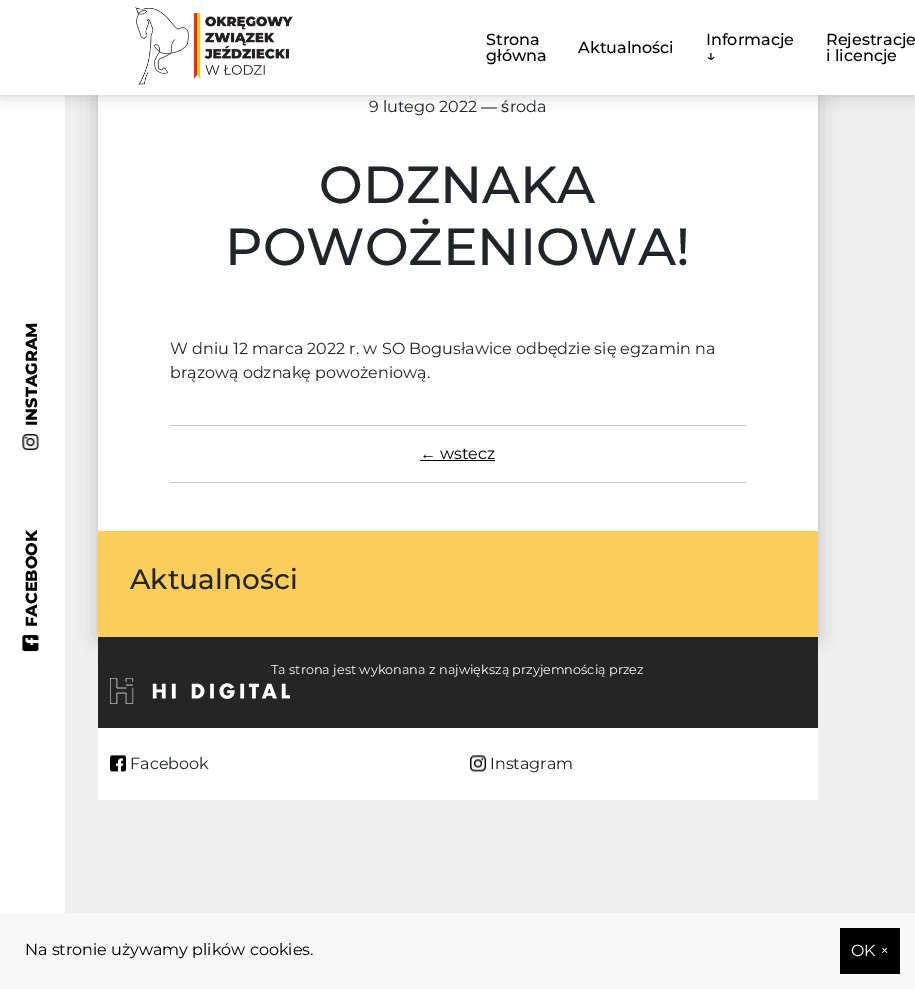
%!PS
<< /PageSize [915 989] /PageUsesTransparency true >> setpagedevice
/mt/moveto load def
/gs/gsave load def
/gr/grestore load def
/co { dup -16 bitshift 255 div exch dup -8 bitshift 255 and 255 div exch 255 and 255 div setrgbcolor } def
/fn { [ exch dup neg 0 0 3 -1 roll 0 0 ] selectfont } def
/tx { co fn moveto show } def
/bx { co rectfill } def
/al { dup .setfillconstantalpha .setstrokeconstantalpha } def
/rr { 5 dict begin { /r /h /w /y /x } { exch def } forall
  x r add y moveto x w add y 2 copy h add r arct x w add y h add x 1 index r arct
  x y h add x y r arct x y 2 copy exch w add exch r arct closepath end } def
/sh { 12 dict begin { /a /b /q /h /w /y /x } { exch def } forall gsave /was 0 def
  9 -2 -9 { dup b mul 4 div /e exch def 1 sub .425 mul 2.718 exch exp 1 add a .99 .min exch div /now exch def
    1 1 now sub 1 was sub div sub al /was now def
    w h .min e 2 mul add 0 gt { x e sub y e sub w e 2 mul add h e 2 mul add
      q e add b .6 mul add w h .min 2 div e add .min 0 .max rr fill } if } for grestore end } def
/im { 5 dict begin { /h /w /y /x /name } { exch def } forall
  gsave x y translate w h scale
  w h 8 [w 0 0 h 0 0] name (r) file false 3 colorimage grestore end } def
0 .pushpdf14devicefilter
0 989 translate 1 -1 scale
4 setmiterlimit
0 0 915 989 16#EFEFEF bx
0 95 65 818 16#FFFFFF bx
16#000000 co
98 95 720 542 0 10 .2 sh
98 95 720 436 16#FFFFFF bx
16#000000 co
0 0 915 95 0 7.5 .2 sh
0 0 915 95 16#FFFFFF bx
(media/1.raw) 135 7 158 78 im
(media/2.raw) 22 434 18 17 im
(media/3.raw) 22 635 18 17 im
170 425 576 1 16#C8C9CA bx
420 460 75 1 16#000000 bx
170 482 576 1 16#C8C9CA bx
98 531 720 106 16#FBCE5B bx
98 637 720 91 16#252525 bx
(media/4.raw) 110 678 180 26 im
98 728 720 72 16#FFFFFF bx
(media/5.raw) 110 755 16 17 im
(media/6.raw) 470 755 16 17 im
0 913 915 76 16#F8F8F8 bx
840 928 60 46 16#000000 bx
(Strona) 486 45 /Montserrat-Medium 16 16#000000 tx
(główna) 486 61 /Montserrat-Medium 16 16#000000 tx
(Aktualności) 578 53 /Montserrat-Medium 16 16#000000 tx
(Informacje) 706 45 /Montserrat-Medium 16 16#000000 tx
(↓) 706 61 /Montserrat-Medium 16 16#000000 tx
(Rejestracje) 826 45 /Montserrat-Medium 16 16#000000 tx
(i licencje) 826 61 /Montserrat-Medium 16 16#000000 tx
/Montserrat-ExtraBold 16 fn
gs 37 426 translate -90 rotate 0 0 mt (INSTAGRAM) show gr
gs 37 627 translate -90 rotate 0 0 mt (FACEBOOK) show gr
(9 lutego 2022) 369 112 /Montserrat-Regular 16 16#212529 tx
(― ś) 481 112 /LiberationSans-Regular 16 16#212529 tx
(roda) 510 112 /Montserrat-Regular 16 16#212529 tx
(ODZNAKA) 319 203 /Montserrat-Medium 52 16#212529 tx
(POWOŻENIOWA!) 225 265 /Montserrat-Medium 52 16#212529 tx
(W dniu 12 marca 2022 r. w SO Bogusławice odbędzie się egzamin na) 170 354 /Montserrat-Regular 16 16#212529 tx
(brązową odznakę powożeniową.) 170 378 /Montserrat-Regular 16 16#212529 tx
(←) 420 459 /LiberationSans-Regular 16 16#000000 tx
(wstecz) 440 459 /Montserrat-Regular 16 16#000000 tx
(Aktualności) 130 589 /Montserrat-Medium 28 16#212529 tx
(Ta strona jest wykonana z największą przyjemnością przez) 271 674 /Montserrat-Regular 12.8 16#FFFFFF tx
(Facebook) 130 769 /Montserrat-Regular 16 16#212529 tx
(Instagram) 490 769 /Montserrat-Regular 16 16#212529 tx
(Na stronie używamy plików cookies.) 25 955 /Montserrat-Regular 16 16#000000 tx
(OK ×) 851 956 /Montserrat-Regular 16 16#FFFFFF tx
.poppdf14devicefilter showpage
